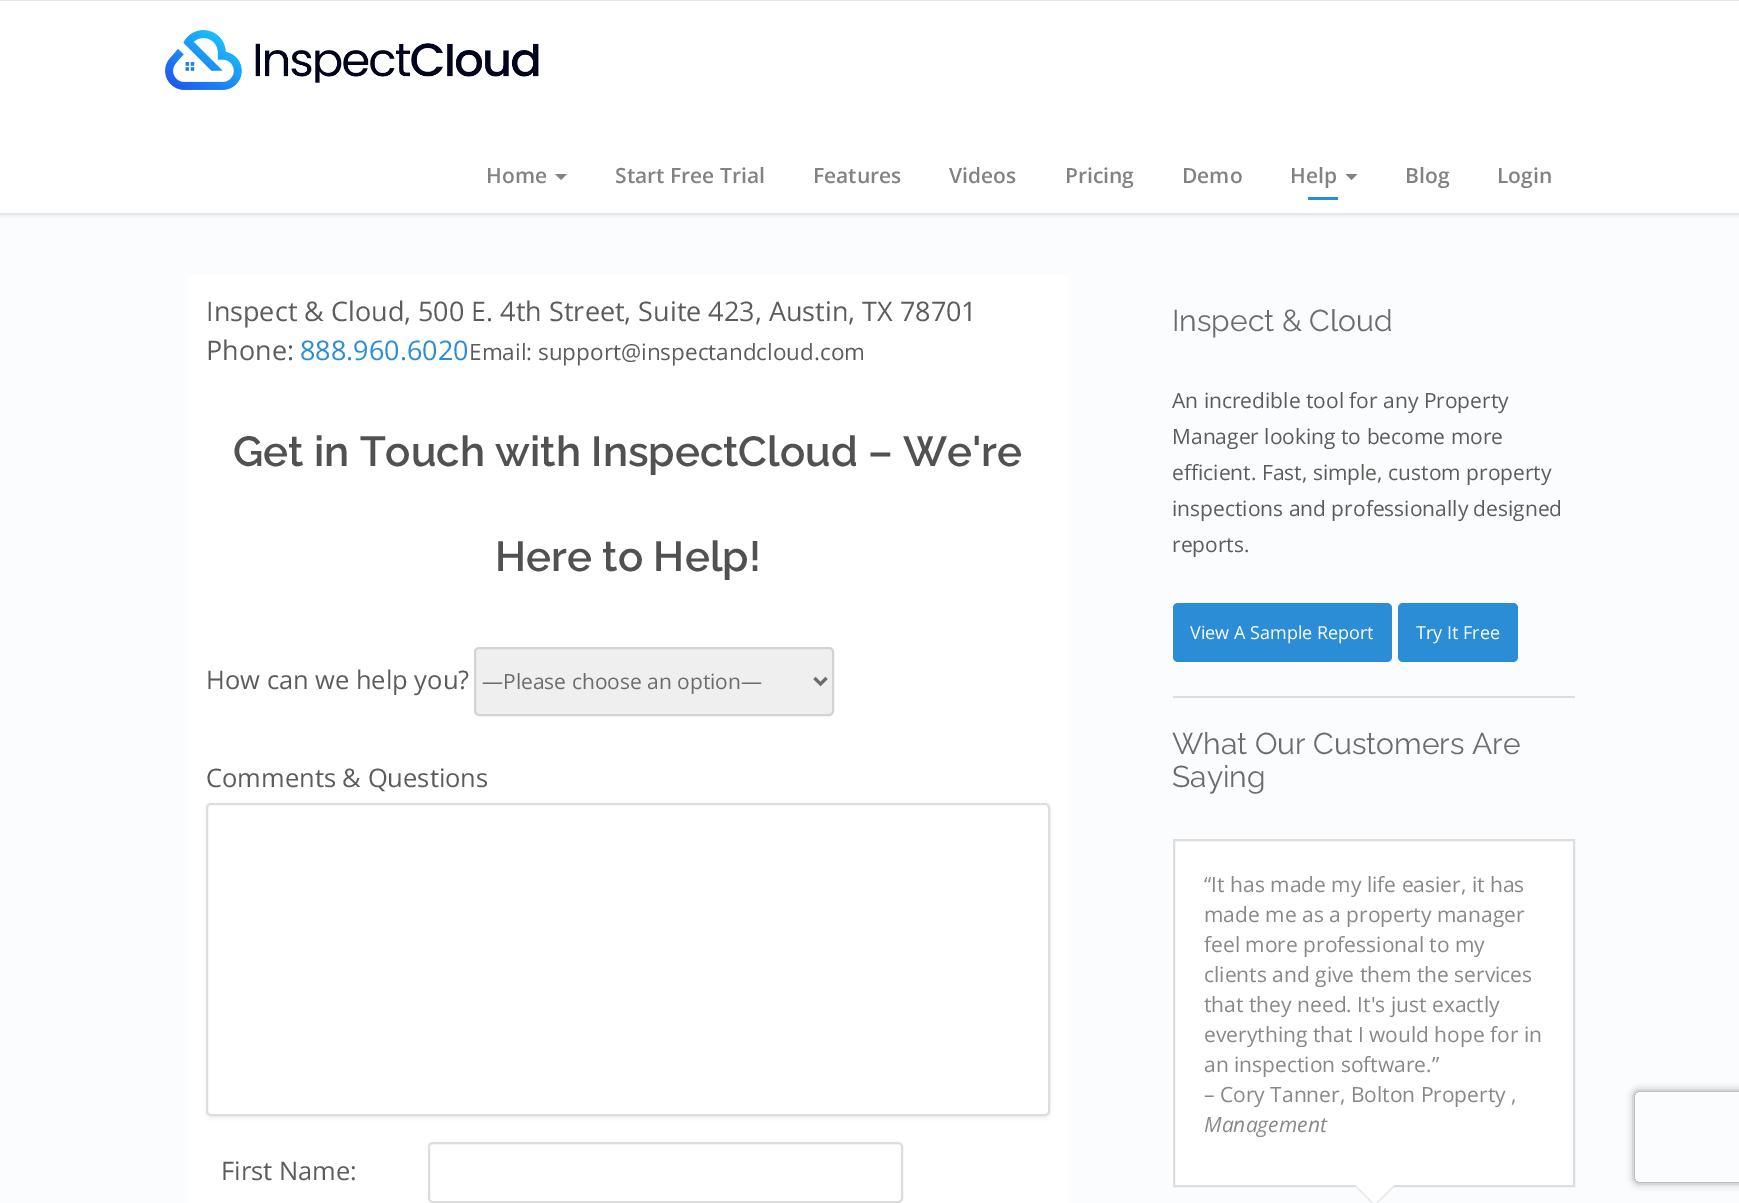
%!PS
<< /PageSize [1739 1203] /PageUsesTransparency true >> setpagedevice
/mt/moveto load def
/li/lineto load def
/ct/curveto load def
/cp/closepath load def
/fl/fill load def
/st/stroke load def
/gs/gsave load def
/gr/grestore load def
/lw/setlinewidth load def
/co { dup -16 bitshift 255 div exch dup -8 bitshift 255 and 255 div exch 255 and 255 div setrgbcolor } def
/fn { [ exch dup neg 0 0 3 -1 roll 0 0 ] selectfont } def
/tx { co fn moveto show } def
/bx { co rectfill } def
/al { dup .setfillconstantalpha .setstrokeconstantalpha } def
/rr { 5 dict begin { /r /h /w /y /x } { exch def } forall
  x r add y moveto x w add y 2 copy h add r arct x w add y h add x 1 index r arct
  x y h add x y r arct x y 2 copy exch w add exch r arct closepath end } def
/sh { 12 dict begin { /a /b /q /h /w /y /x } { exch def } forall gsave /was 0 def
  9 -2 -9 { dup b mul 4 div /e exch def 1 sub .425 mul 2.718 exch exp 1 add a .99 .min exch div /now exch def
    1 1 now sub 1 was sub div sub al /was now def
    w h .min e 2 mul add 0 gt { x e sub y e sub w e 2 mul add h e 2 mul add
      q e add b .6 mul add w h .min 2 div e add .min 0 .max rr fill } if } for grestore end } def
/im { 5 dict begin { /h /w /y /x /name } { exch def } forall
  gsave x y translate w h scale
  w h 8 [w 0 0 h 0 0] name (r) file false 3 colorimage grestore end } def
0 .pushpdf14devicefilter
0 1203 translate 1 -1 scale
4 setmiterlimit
0 0 1739 1203 16#FBFCFD bx
16#2B3033 co
0 2 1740 214 0 1.5 .08 sh
0 0 1739 1 16#E7E7E7 bx
0 1 1739 212 16#FFFFFF bx
0 213 1739 2 16#E7E7E7 bx
(media/1.raw) 165 30 374 60 im
16#828282 co
555 174 mt 567 174 li 561 180 li cp fl
1345.5 174 mt 1357.5 174 li 1351.5 180 li cp fl
1308 197 30 3 16#2B8DD6 bx
188 275 880 928 16#FFFFFF bx
16#EFEFEF co
475 648 358 67 4 rr gs fl gr
16#D3D3D3 co
2 lw
st
16#6C6C6C co
3 lw
814.5 678 mt 820.5 684 li 826.5 678 li st
16#EEEEEE co
206 804 844 314 5 2 1 sh
16#FFFFFF co
207 804 842 311 4 rr gs fl gr
16#DDDDDD co
2 lw
st
429 1143 473 59 4 rr st
1173 696 402 2 16#DDDDDD bx
16#2B8DD6 co
1173 603 219 59 5 rr fl
1398 603 120 59 5 rr fl
16#FFFFFF co
1174 840 mt 1574 840 li 1574 1186 li 1174 1186 li cp gs fl gr
16#DDDDDD co
st
(media/2.raw) 1355 1185 39 18 im
gs
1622 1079 mt 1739 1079 li 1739 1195 li 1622 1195 li cp 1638 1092 mt 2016 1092 li 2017.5 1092 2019 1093.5 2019 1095 ct 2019 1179 li 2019 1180.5 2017.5 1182 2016 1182 ct 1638 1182 li 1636.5 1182 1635 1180.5 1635 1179 ct 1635 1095 li 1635 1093.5 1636.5 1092 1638 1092 ct cp eoclip newpath
16#808080 co
1635 1092 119 90 3 4 1 sh
gr
(Home) 486 183 /OpenSans-SemiBold 21 16#828282 tx
(Start Free Trial) 615 183 /OpenSans-SemiBold 21 16#828282 tx
(Features) 813 183 /OpenSans-SemiBold 21 16#828282 tx
(Videos) 949 183 /OpenSans-SemiBold 21 16#828282 tx
(Pricing) 1065 183 /OpenSans-SemiBold 21 16#828282 tx
(Demo) 1182 183 /OpenSans-SemiBold 21 16#828282 tx
(Help) 1290 183 /OpenSans-SemiBold 21 16#828282 tx
(Blog) 1405 183 /OpenSans-SemiBold 21 16#828282 tx
(Login) 1497 183 /OpenSans-SemiBold 21 16#828282 tx
(Inspect & Cloud, 500 E. 4th Street, Suite 423, Austin, TX 78701) 206 321 /OpenSans-Regular 27 16#5C5C5C tx
(Phone:) 206 360 /OpenSans-Regular 27 16#5C5C5C tx
(888.960.6020) 300 360 /OpenSans-Regular 27 16#2B8DD6 tx
(Email: support@inspectandcloud.com) 469 360 /OpenSans-Regular 22.5 16#5C5C5C tx
(Get in Touch with InspectCloud – We're) 233 466 /Raleway-SemiBold 42 16#515151 tx
(Here to Help!) 495 571 /Raleway-SemiBold 42 16#515151 tx
(How can we help you?) 206 689 /OpenSans-Regular 25.5 16#5C5C5C tx
(—Please choose an option—) 482 689 /OpenSans-Regular 21 16#6C6C6C tx
(Comments & Questions) 206 787 /OpenSans-Regular 25.5 16#5C5C5C tx
(First Name:) 221 1180 /OpenSans-Regular 25.5 16#5C5C5C tx
(Inspect & Cloud) 1172 331 /Raleway-Regular 30 16#6C6C6C tx
(An incredible tool for any Property) 1172 408 /OpenSans-Regular 21 16#5C5C5C tx
(Manager looking to become more) 1172 444 /OpenSans-Regular 21 16#5C5C5C tx
(efficient. Fast, simple, custom property) 1172 480 /OpenSans-Regular 21 16#5C5C5C tx
(inspections and professionally designed) 1172 516 /OpenSans-Regular 21 16#5C5C5C tx
(reports.) 1172 552 /OpenSans-Regular 21 16#5C5C5C tx
(View A Sample Report) 1190 639 /OpenSans-Regular 18 16#FFFFFF tx
(Try It Free) 1416 639 /OpenSans-Regular 18 16#FFFFFF tx
(What Our Customers Are) 1172 754 /Raleway-Regular 30 16#6C6C6C tx
(Saying) 1172 787 /Raleway-Regular 30 16#6C6C6C tx
(“It has made my life easier, it has) 1204 892 /OpenSans-Regular 21 16#888888 tx
(made me as a property manager) 1204 922 /OpenSans-Regular 21 16#888888 tx
(feel more professional to my) 1204 952 /OpenSans-Regular 21 16#888888 tx
(clients and give them the services) 1204 982 /OpenSans-Regular 21 16#888888 tx
(that they need. It's just exactly) 1204 1012 /OpenSans-Regular 21 16#888888 tx
(everything that I would hope for in) 1204 1042 /OpenSans-Regular 21 16#888888 tx
(an inspection software.”) 1204 1072 /OpenSans-Regular 21 16#888888 tx
(– Cory Tanner, Bolton Property ,) 1204 1102 /OpenSans-Regular 21 16#888888 tx
(Management) 1204 1132 /OpenSans-Italic 21 16#888888 tx
.poppdf14devicefilter showpage
